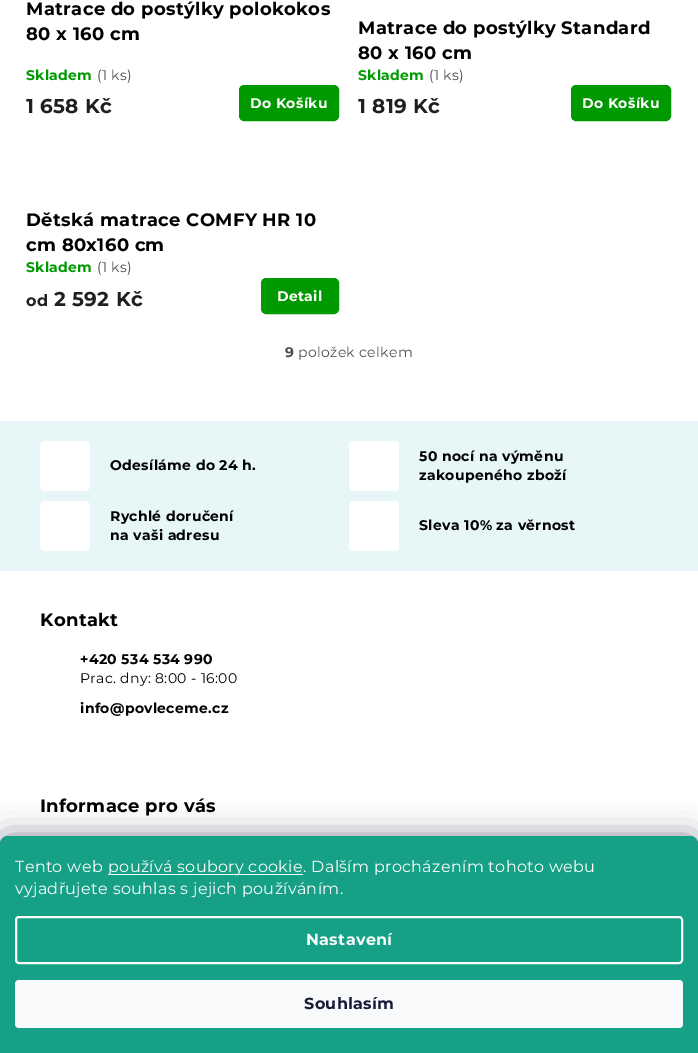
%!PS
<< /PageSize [698 1053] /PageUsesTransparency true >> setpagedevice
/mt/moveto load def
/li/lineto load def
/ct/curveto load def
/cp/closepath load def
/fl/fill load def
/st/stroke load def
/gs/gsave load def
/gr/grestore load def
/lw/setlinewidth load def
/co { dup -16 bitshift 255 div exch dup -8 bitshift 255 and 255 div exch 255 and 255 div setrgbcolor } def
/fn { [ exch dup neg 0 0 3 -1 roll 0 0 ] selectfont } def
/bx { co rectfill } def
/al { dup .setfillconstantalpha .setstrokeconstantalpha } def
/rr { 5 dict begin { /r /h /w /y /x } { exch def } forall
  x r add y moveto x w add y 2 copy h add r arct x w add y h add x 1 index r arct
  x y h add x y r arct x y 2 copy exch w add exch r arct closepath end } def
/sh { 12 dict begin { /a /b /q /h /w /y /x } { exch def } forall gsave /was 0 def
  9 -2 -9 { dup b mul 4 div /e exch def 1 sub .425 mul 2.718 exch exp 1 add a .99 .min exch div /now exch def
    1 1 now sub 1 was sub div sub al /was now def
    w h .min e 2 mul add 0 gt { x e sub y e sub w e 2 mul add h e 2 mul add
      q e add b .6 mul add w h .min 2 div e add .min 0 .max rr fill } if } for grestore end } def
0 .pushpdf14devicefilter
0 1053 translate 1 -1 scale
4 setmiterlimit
0 0 698 1053 16#FFFFFF bx
16#009901 co
239.5 85.5 99 35 4.5 rr gs fl gr
st
571.5 85.5 99 35 4.5 rr gs fl gr
st
261.5 278.5 77 35 4.5 rr gs fl gr
st
0 421 698 150 16#E7F7F7 bx
16#FFFFFF co
40 441 50 50 5 rr fl
349 441 50 50 5 rr fl
40 501 50 50 5 rr fl
349 501 50 50 5 rr fl
16#1B1939 co
0 836 698 217 8 15 .5 sh
16#16A085 co
8 836 mt 690 836 li 694.5 836 698 839.5 698 844 ct 698 1053 li 0 1053 li 0 844 li 0 839.5 3.5 836 8 836 ct cp fl
108 874 195 1 16#F8FAFB bx
2 lw
16 917 666 46 3 rr st
15 980 668 48 4 rr fl
/Montserrat-Bold 18 fn
16#000000 co
26 15 mt .33 0 (Matrace do postýlky polokokos) ashow
26 40 mt .33 0 (80 x 160 cm) ashow
/Montserrat-Bold 14 fn
16#009901 co
26 80 mt .33 0 (Skladem) ashow
/Montserrat-Regular 14 fn
16#4D4D4D co
97 80 mt .33 0 (\(1 ks\)) ashow
/Montserrat-Bold 20 fn
16#1F1F1F co
26 113 mt .33 0 (1 658 Kč) ashow
/Montserrat-Bold 14 fn
16#FFFFFF co
250 108 mt .33 0 (Do Košíku) ashow
/Montserrat-Bold 18 fn
16#000000 co
358 34 mt .33 0 (Matrace do postýlky Standard) ashow
358 59 mt .33 0 (80 x 160 cm) ashow
/Montserrat-Bold 14 fn
16#009901 co
358 80 mt .33 0 (Skladem) ashow
/Montserrat-Regular 14 fn
16#4D4D4D co
429 80 mt .33 0 (\(1 ks\)) ashow
/Montserrat-Bold 20 fn
16#1F1F1F co
358 113 mt .33 0 (1 819 Kč) ashow
/Montserrat-Bold 14 fn
16#FFFFFF co
582 108 mt .33 0 (Do Košíku) ashow
/Montserrat-Bold 18 fn
16#000000 co
26 226 mt .33 0 (Dětská matrace COMFY HR 10) ashow
26 251 mt .33 0 (cm 80x160 cm) ashow
/Montserrat-Bold 14 fn
16#009901 co
26 272 mt .33 0 (Skladem) ashow
/Montserrat-Regular 14 fn
16#4D4D4D co
97 272 mt .33 0 (\(1 ks\)) ashow
/Montserrat-Bold 16 fn
16#1F1F1F co
26 306 mt .33 0 (od) ashow
/Montserrat-Bold 20 fn
54 306 mt .33 0 (2 592 Kč) ashow
/Montserrat-Bold 14 fn
16#FFFFFF co
277 301 mt .33 0 (Detail) ashow
16#4D4D4D co
285 357 mt .33 0 (9) ashow
/Montserrat-Regular 14 fn
298 357 mt .33 0 (položek celkem) ashow
/Montserrat-Bold 14 fn
16#000000 co
110 470 mt .33 0 (Odesíláme do 24 h.) ashow
419 461 mt .33 0 (50 nocí na výměnu) ashow
419 480 mt .33 0 (zakoupeného zboží) ashow
110 521 mt .33 0 (Rychlé doručení) ashow
110 540 mt .33 0 (na vaši adresu) ashow
419 530 mt .33 0 (Sleva 10% za věrnost) ashow
/Montserrat-Bold 18 fn
40 626 mt .33 0 (Kontakt) ashow
/Montserrat-Bold 14 fn
80 664 mt .33 0 (+420 534 534 990) ashow
/Montserrat-Regular 14 fn
80 683 mt .33 0 (Prac. dny: 8:00 - 16:00) ashow
/Montserrat-Bold 14 fn
80 713 mt .33 0 (info@povleceme.cz) ashow
/Montserrat-Bold 18 fn
40 812 mt .33 0 (Informace pro vás) ashow
/Montserrat-Regular 16 fn
16#F8FAFB co
15 872 mt .33 0 (Tento web) ashow
108 872 mt .33 0 (používá soubory cookie. Dalším procházením tohoto webu) ashow
15 894 mt .33 0 (vyjadřujete souhlas s jejich používáním.) ashow
/Montserrat-Bold 16 fn
306 945 mt .33 0 (Nastavení) ashow
16#1A1937 co
304 1009 mt .33 0 (Souhlasím) ashow
.poppdf14devicefilter showpage
